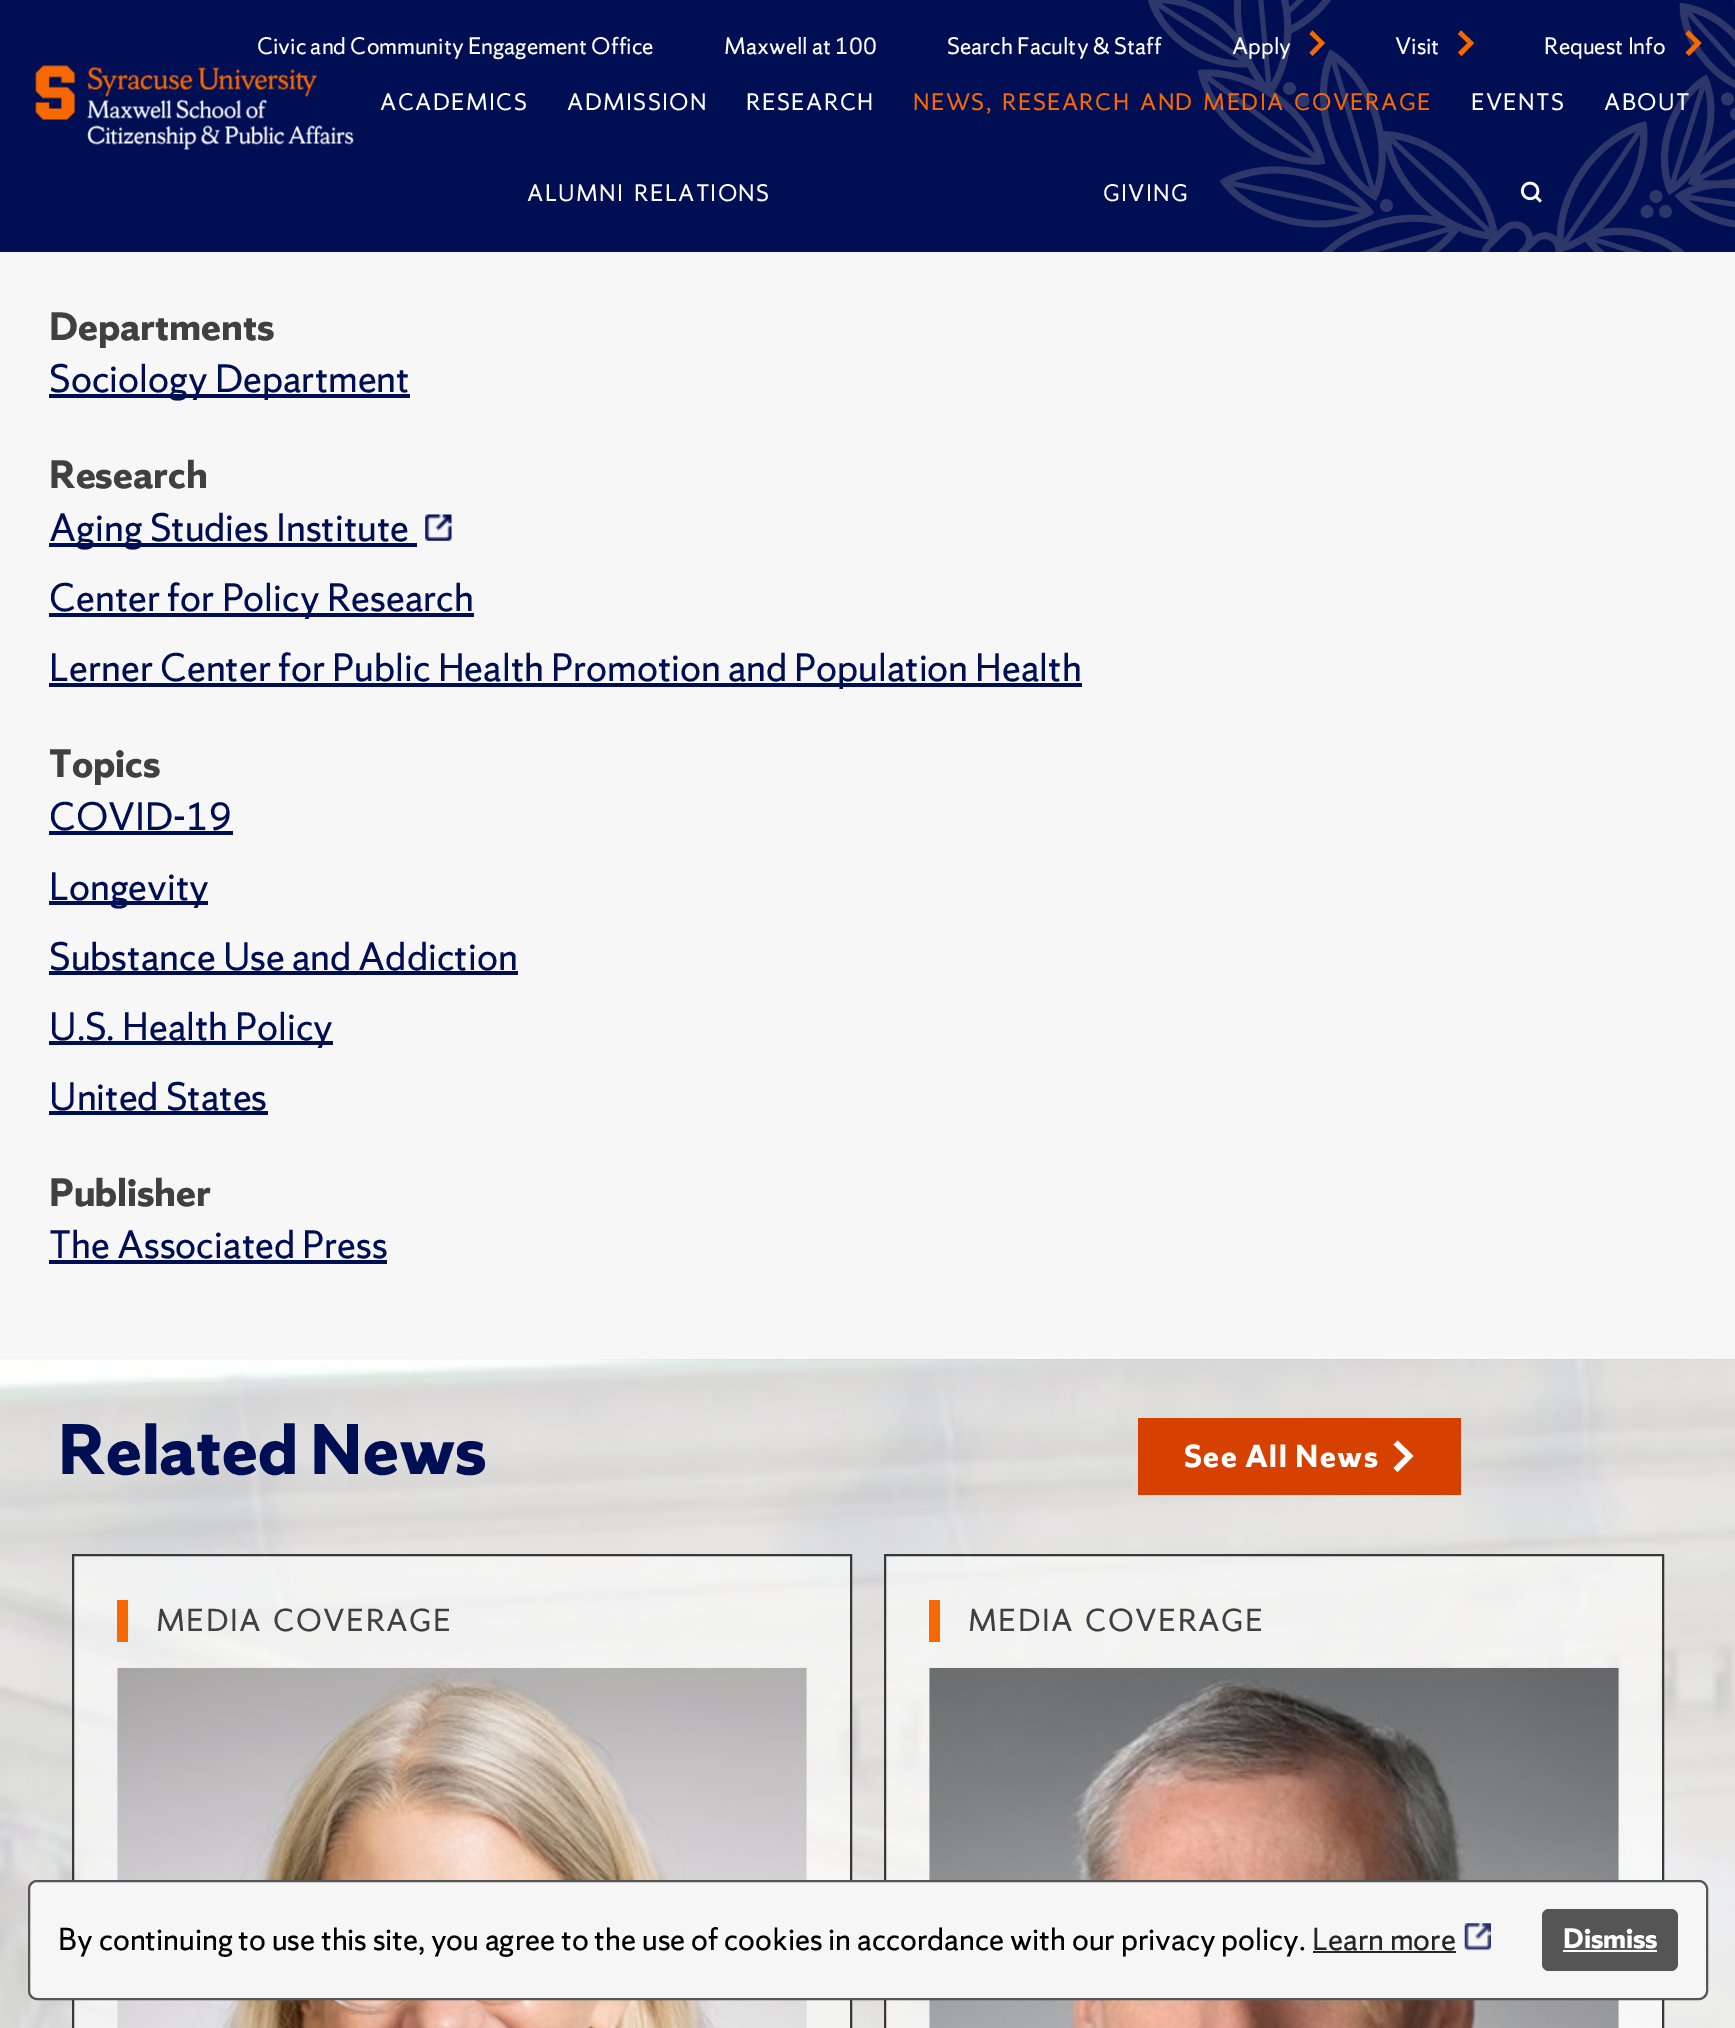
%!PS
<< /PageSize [1735 2028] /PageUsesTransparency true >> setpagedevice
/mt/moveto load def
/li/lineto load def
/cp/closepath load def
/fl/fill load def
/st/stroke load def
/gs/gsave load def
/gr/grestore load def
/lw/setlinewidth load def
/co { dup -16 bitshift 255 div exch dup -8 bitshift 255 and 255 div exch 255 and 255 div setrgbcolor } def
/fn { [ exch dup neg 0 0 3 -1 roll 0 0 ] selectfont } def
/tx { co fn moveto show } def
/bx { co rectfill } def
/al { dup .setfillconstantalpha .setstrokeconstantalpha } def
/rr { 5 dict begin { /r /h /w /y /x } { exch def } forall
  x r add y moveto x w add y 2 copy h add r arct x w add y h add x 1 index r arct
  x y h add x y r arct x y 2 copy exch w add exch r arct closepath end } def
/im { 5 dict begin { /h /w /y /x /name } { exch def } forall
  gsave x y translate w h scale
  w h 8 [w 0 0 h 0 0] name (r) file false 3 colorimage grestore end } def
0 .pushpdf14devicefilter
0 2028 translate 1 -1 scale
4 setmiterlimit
0 0 1735 2028 16#F7F7F8 bx
0 0 1735 252 16#000E54 bx
(media/1.raw) 1148 0 587 252 im
16#F76900 co
1309.5 34 mt 1319 43 li 1309.5 52.5 li 1312.5 56 li 1325 43 li 1312.5 30.5 li cp fl
1458 34 mt 1467.5 43 li 1458 52.5 li 1461.5 56 li 1474 43 li 1461 30.5 li cp fl
1685.5 34 mt 1695 43 li 1685.5 52.5 li 1689 56 li 1701.5 43 li 1688.5 30.5 li cp fl
(media/2.raw) 35 65 319 85 im
(media/3.raw) 1520 181 22 22 im
49 394 361 4 16#000E54 bx
49 543 368 4 16#000E54 bx
(media/4.raw) 425 514 27 27 im
49 613 425 4 16#000E54 bx
49 683 1033 4 16#000E54 bx
49 831 184 4 16#000E54 bx
49 901 159 4 16#000E54 bx
49 971 469 4 16#000E54 bx
49 1041 284 4 16#000E54 bx
49 1111 219 4 16#000E54 bx
49 1260 338 4 16#000E54 bx
(media/5.raw) 0 1359 1735 669 im
1138 1418 323 77 16#D74100 bx
16#FFFFFF co
1393.5 1444.5 mt 1405.5 1456 li 1393.5 1468 li 1397.5 1472 li 1413.5 1456 li 1397.5 1440.5 li cp fl
0.6 al
73 1555 mt 851 1555 li 851 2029 li 73 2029 li cp fl
1 al
16#383838 co
2 lw
73 1555 mt 851 1555 li 851 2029 li 73 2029 li cp st
117 1600 11 42 16#F76900 bx
(media/6.raw) 117 1667 690 361 im
0.6 al
16#FFFFFF co
885 1555 mt 1663 1555 li 1663 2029 li 885 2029 li cp fl
1 al
16#383838 co
885 1555 mt 1663 1555 li 1663 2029 li 885 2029 li cp st
929 1600 11 42 16#F76900 bx
(media/7.raw) 929 1667 690 361 im
16#F6F6F6 co
29 1881 1678 118 8 rr gs fl gr
16#555555 co
st
1313 1951 143 2 16#252525 bx
(media/8.raw) 1464 1923 27 28 im
16#555555 co
1542 1909 136 62 7 rr fl
1563 1950 94 2 16#FFFFFF bx
(Civic and Community Engagement Office) 257 54 /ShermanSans-Regular 21 16#FFFFFF tx
(Maxwell at 100) 724 54 /ShermanSans-Regular 21 16#FFFFFF tx
(Search Faculty & Staff) 947 54 /ShermanSans-Regular 21 16#FFFFFF tx
(Apply) 1232 54 /ShermanSans-Regular 21 16#FFFFFF tx
(Visit) 1395 54 /ShermanSans-Regular 21 16#FFFFFF tx
(Request Info) 1544 54 /ShermanSans-Regular 21 16#FFFFFF tx
380 110 mt 1.4 0 (ACADEMICS) ashow
567 110 mt 1.4 0 (ADMISSION) ashow
746 110 mt 1.4 0 (RESEARCH) ashow
16#F76900 co
913 110 mt 4 0 32 1.4 0 (NEWS, RESEARCH AND MEDIA COVERAGE) awidthshow
16#FFFFFF co
1471 110 mt 1.4 0 (EVENTS) ashow
1604 110 mt 1.4 0 (ABOUT) ashow
527 201 mt 4 0 32 1.4 0 (ALUMNI RELATIONS) awidthshow
1103 201 mt 1.4 0 (GIVING) ashow
(Departments) 49 340 /ShermanSans-Bold 35 16#404040 tx
(Sociology Department) 49 392 /ShermanSans-Regular 35 16#000E54 tx
(Research) 49 488 /ShermanSans-Bold 35 16#404040 tx
(Aging Studies Institute) 49 541 /ShermanSans-Regular 35 16#000E54 tx
(Center for Policy Research) 49 611 /ShermanSans-Regular 35 16#000E54 tx
(Lerner Center for Public Health Promotion and Population Health) 49 681 /ShermanSans-Regular 35 16#000E54 tx
(Topics) 49 777 /ShermanSans-Bold 35 16#404040 tx
(COVID-19) 49 830 /ShermanSans-Regular 35 16#000E54 tx
(Longevity) 49 900 /ShermanSans-Regular 35 16#000E54 tx
(Substance Use and Addiction) 49 970 /ShermanSans-Regular 35 16#000E54 tx
(U.S. Health Policy) 49 1040 /ShermanSans-Regular 35 16#000E54 tx
(United States) 49 1110 /ShermanSans-Regular 35 16#000E54 tx
(Publisher) 49 1206 /ShermanSans-Bold 35 16#404040 tx
(The Associated Press) 49 1258 /ShermanSans-Regular 35 16#000E54 tx
(Related News) 58 1474 /ShermanSans-Bold 63 16#000E54 tx
/ShermanSans-Bold 28 fn
16#FFFFFF co
1184 1467 mt 1.4 0 (See All News) ashow
/ShermanSans-Regular 28 fn
16#404040 co
156 1631 mt 4 0 32 1.4 0 (MEDIA COVERAGE) awidthshow
968 1631 mt 4 0 32 1.4 0 (MEDIA COVERAGE) awidthshow
(By continuing to use this site, you agree to the use of cookies in accordance with our privacy policy.) 58 1950 /ShermanSans-Regular 28 16#000000 tx
(Learn more) 1312 1950 /ShermanSans-Regular 28 16#252525 tx
(Dismiss) 1563 1948 /ShermanSans-Bold 25 16#FFFFFF tx
.poppdf14devicefilter showpage
